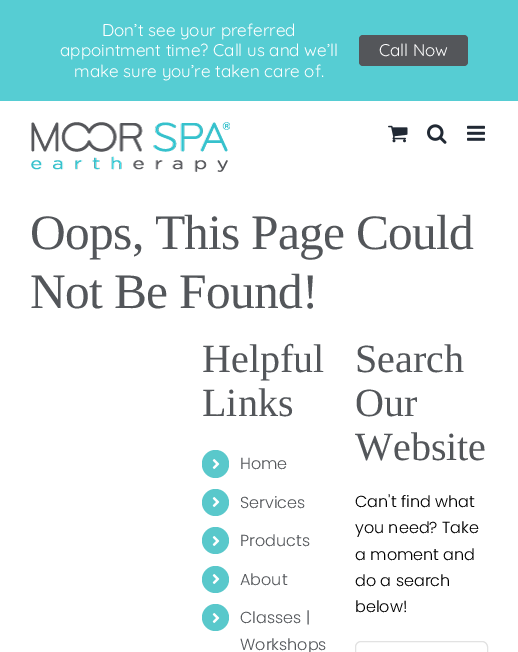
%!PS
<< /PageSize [518 652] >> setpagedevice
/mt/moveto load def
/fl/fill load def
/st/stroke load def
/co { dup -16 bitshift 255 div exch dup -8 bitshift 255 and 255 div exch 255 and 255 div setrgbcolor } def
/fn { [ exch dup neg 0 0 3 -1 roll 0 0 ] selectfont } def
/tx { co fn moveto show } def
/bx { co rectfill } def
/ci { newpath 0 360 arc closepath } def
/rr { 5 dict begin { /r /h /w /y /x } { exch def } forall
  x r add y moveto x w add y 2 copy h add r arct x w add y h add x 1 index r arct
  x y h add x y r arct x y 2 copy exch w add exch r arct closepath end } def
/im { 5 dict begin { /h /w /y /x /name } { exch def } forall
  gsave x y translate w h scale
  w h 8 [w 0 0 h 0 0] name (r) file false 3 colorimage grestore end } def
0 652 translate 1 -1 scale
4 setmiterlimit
0 0 518 652 16#FFFFFF bx
0 0 518 101 16#56CDD3 bx
16#54565A co
359 35 109 31 4 rr fl
(media/1.raw) 31 122 199 50 im
(media/2.raw) 388 125 20 18 im
(media/3.raw) 427 124 20 20 im
(media/4.raw) 467 125 18 16 im
16#59C8CB co
202 450 27 28 13.5 rr fl
(media/5.raw) 212 459 8 10 im
215.5 502.5 13.5 ci fl
(media/5.raw) 212 497 8 10 im
215.5 540.5 13.5 ci fl
(media/5.raw) 212 536 8 10 im
215.5 579.5 13.5 ci fl
(media/5.raw) 212 574 8 10 im
215.5 617.5 13.5 ci fl
(media/5.raw) 212 613 8 10 im
16#E2E2E2 co
355.5 641.5 132 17 5.5 rr st
(Don’t see your preferred) 102 36 /Quicksand-Regular 17 16#FFFFFF tx
(appointment time? Call us and we’ll) 60 56 /Quicksand-Regular 17 16#FFFFFF tx
(make sure you’re taken care of.) 74 77 /Quicksand-Regular 17 16#FFFFFF tx
(Call Now) 379 56 /Quicksand-Regular 17 16#FFFFFF tx
/LiberationSerif-Regular 49.5 fn
16#53565A co
30 249 mt -.75 0 (Oops, This Page Could) ashow
30 308 mt -.75 0 (Not Be Found!) ashow
(Helpful) 202 372 /LiberationSerif-Regular 40 16#53565A tx
(Links) 202 416 /LiberationSerif-Regular 40 16#53565A tx
(Home) 240 469 /Poppins-Light 16 16#53565A tx
(Services) 240 508 /Poppins-Light 16 16#53565A tx
(Products) 240 546 /Poppins-Light 16 16#53565A tx
(About) 240 585 /Poppins-Light 16 16#53565A tx
(Classes |) 240 623 /Poppins-Light 16 16#53565A tx
(Workshops) 240 650 /Poppins-Light 16 16#53565A tx
(Search) 355 372 /LiberationSerif-Regular 40 16#53565A tx
(Our) 355 416 /LiberationSerif-Regular 40 16#53565A tx
(Website) 355 460 /LiberationSerif-Regular 40 16#53565A tx
(Can't find what) 355 507 /Poppins-Light 16 16#000000 tx
(you need? Take) 355 533 /Poppins-Light 16 16#000000 tx
(a moment and) 355 560 /Poppins-Light 16 16#000000 tx
(do a search) 355 586 /Poppins-Light 16 16#000000 tx
(below!) 355 612 /Poppins-Light 16 16#000000 tx
showpage
